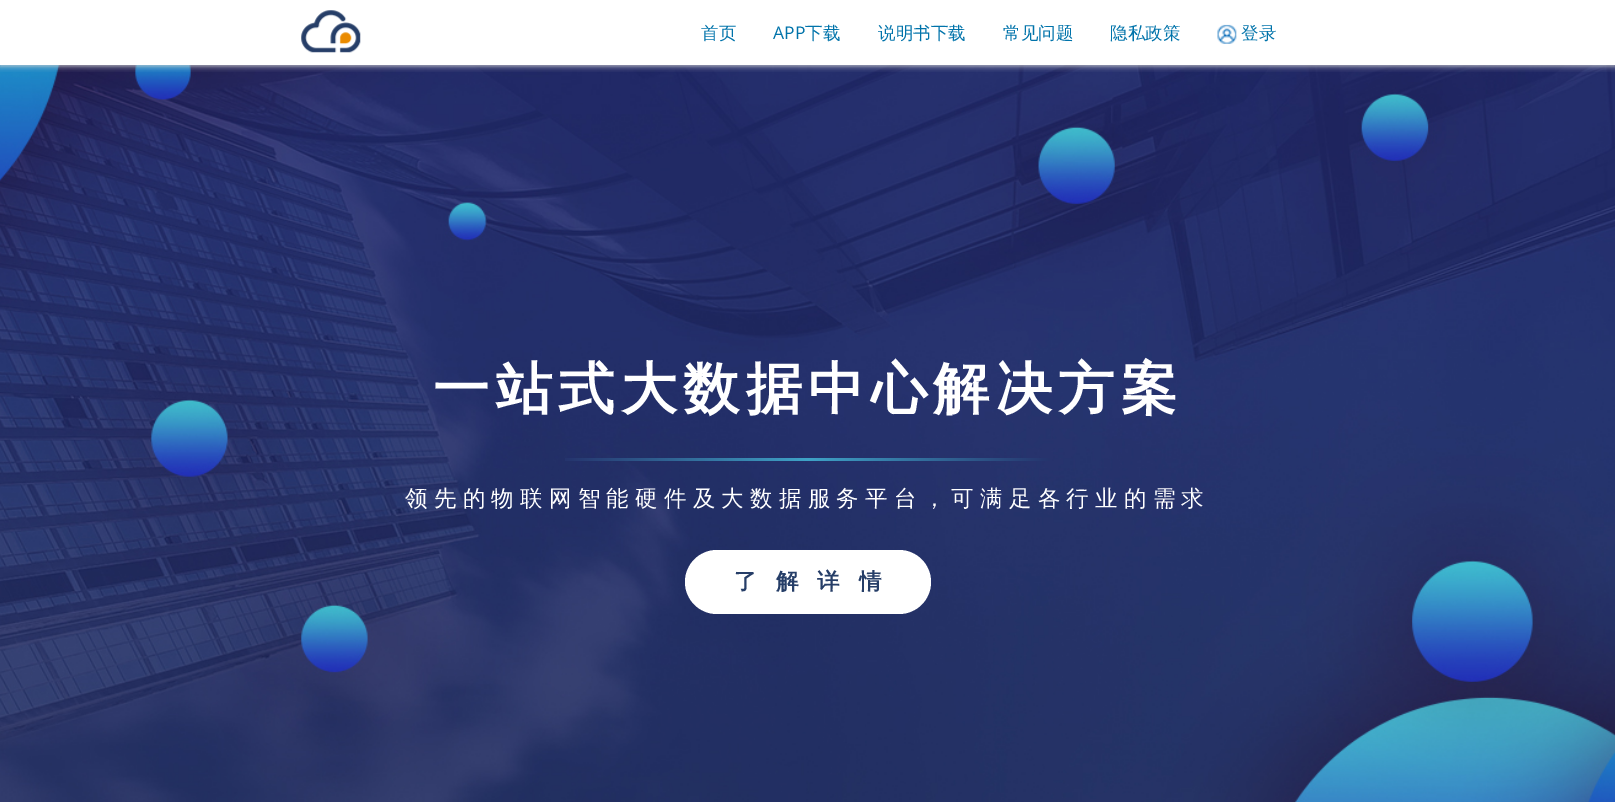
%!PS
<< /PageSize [1615 802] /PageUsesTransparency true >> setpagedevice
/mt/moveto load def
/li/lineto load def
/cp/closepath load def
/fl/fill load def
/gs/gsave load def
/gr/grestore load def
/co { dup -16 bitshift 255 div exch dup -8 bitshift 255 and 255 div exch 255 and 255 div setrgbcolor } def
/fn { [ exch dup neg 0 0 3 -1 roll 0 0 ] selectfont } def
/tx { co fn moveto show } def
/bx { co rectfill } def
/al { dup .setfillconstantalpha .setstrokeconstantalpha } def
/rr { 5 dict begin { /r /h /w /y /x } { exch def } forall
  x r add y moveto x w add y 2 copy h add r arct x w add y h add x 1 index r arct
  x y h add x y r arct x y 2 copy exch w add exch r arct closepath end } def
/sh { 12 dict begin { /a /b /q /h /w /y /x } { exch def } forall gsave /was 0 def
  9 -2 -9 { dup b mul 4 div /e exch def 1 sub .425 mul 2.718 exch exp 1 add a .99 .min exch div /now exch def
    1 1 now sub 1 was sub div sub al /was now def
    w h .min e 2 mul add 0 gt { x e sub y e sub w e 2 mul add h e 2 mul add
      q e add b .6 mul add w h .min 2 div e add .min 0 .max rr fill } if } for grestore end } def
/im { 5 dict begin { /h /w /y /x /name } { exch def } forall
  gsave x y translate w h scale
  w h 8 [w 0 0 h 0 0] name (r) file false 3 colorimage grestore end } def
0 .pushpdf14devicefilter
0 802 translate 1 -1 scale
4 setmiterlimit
0 0 1615 802 16#FFFFFF bx
(media/3.raw) 0 65 1615 737 im
gs
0 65 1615 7 rectclip
16#D3D3D4 co
0 1 1615 65 0 3 1 sh
gr
(media/1.raw) 301 10 60 43 im
(media/2.raw) 1217 24 20 20 im
gs 565 458 mt 1050 458 li 1050 461 li 565 461 li cp clip newpath
<< /ShadingType 2 /ColorSpace /DeviceRGB /Coords [1050 459 565 459] /Extend [true true] /Function << /FunctionType 3 /Domain [0 1] /Functions [<< /FunctionType 2 /Domain [0 1] /C0 [.145 .204 .427] /C1 [.247 .639 .78] /N 1 >> << /FunctionType 2 /Domain [0 1] /C0 [.247 .639 .78] /C1 [.145 .204 .427] /N 1 >>] /Bounds [.5] /Encode [0 1 0 1] >> >> shfill gr
685 550 246 64 32 rr fl
(首页) 701 39 /WenQuanYiZenHei-Medium 17.5 16#0073AA tx
(APP) 773 39 /OpenSans-Regular 17.5 16#0073AA tx
(下载) 805 39 /WenQuanYiZenHei-Medium 17.5 16#0073AA tx
(说明书下载) 878 39 /WenQuanYiZenHei-Medium 17.5 16#0073AA tx
(常见问题) 1003 39 /WenQuanYiZenHei-Medium 17.5 16#0073AA tx
(隐私政策) 1110 39 /WenQuanYiZenHei-Medium 17.5 16#0073AA tx
(登录) 1241 39 /WenQuanYiZenHei-Medium 17.5 16#0073AA tx
/WenQuanYiZenHei-Bold 56.25 fn
16#FFFFFF co
433 408 mt 6.25 0 (一站式大数据中心解决方案) ashow
/WenQuanYiZenHei-Medium 22.5 fn
405 506 mt 6.25 0 (领先的物联网智能硬件及大数据服务平台，可满足各行业的需求) ashow
/WenQuanYiZenHei-Bold 22.5 fn
16#263E68 co
734 589 mt 19 0 (了解详情) ashow
.poppdf14devicefilter showpage
